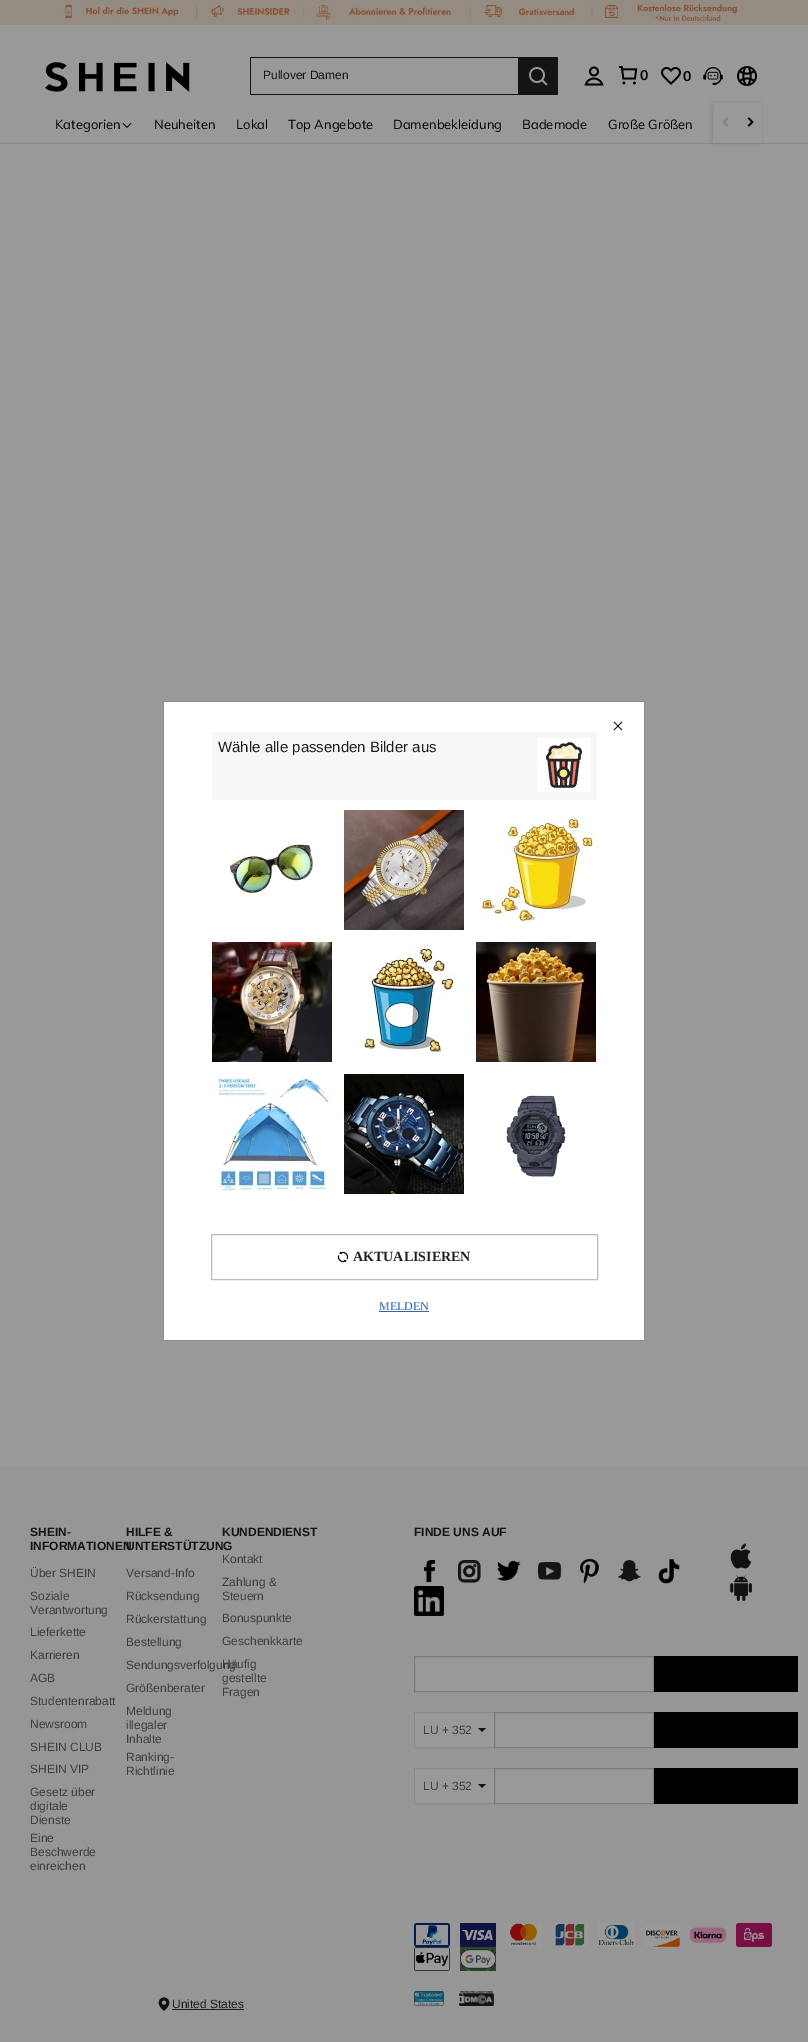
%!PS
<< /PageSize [808 2042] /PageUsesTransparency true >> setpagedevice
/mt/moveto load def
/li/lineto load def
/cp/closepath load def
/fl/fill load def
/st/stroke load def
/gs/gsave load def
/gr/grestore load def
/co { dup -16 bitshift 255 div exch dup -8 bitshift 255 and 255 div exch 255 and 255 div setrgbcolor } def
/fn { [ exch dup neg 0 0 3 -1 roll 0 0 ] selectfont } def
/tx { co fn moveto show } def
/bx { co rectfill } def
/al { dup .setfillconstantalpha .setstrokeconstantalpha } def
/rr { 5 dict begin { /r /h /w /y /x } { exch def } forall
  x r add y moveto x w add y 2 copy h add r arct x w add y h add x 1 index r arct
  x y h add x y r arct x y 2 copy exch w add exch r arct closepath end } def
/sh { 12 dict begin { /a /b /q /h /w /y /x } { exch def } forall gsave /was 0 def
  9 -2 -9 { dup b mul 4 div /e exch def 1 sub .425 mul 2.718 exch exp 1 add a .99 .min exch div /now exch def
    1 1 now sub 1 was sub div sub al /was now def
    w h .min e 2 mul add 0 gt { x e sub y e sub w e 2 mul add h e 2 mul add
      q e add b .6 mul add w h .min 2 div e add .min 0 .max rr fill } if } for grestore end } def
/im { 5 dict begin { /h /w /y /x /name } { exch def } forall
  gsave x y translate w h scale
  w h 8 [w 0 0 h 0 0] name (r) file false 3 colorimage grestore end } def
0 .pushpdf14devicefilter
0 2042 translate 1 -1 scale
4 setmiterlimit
0 0 808 2042 16#999999 bx
(media/1.raw) 0 0 808 25 im
0 143 808 1 16#898989 bx
16#000000 co
711 104 50 39 0 1.5 .08 sh
711 103 50 1 16#999999 bx
(media/2.raw) 45 62 145 30 im
250 57 268 1 16#141414 bx
250 94 268 1 16#141414 bx
250 57 1 38 16#141414 bx
518 57 40 38 16#141414 bx
(media/3.raw) 529 67 19 19 im
(media/4.raw) 584 66 20 20 im
(media/5.raw) 619 66 19 19 im
(media/6.raw) 661 67 20 18 im
(media/7.raw) 703 67 20 19 im
(media/8.raw) 737 66 20 20 im
(media/9.raw) 122 123 10 5 im
713 104 49 39 16#999999 bx
(media/10.raw) 722 117 7 10 im
(media/11.raw) 747 117 7 10 im
0 1466 808 576 16#969696 bx
(media/12.raw) 424 1560 12 22 im
(media/13.raw) 458 1560 23 23 im
(media/14.raw) 496 1560 25 21 im
(media/15.raw) 538 1562 24 18 im
(media/16.raw) 580 1558 20 26 im
(media/17.raw) 618 1560 23 22 im
(media/18.raw) 658 1559 22 25 im
(media/19.raw) 414 1586 30 30 im
(media/20.raw) 730 1543 22 26 im
(media/21.raw) 730 1575 22 26 im
16#999999 co
414.5 1656.5 mt 653.5 1656.5 li 653.5 1691.5 li 414.5 1691.5 li cp gs fl gr
16#7A7A7A co
st
654 1656 144 36 16#000000 bx
415 1713 79 34 16#999999 bx
414 1712 80 1 16#898989 bx
414 1747 80 1 16#898989 bx
414 1712 1 36 16#898989 bx
16#141414 co
478 1728 mt 486 1728 li 482 1732 li cp fl
16#999999 co
494.5 1712.5 mt 653.5 1712.5 li 653.5 1747.5 li 494.5 1747.5 li cp gs fl gr
16#7A7A7A co
st
654 1712 144 36 16#000000 bx
415 1769 79 34 16#999999 bx
414 1768 80 1 16#898989 bx
414 1803 80 1 16#898989 bx
414 1768 1 36 16#898989 bx
16#141414 co
478 1784 mt 486 1784 li 482 1788 li cp fl
16#999999 co
494.5 1768.5 mt 653.5 1768.5 li 653.5 1803.5 li 494.5 1803.5 li cp gs fl gr
16#7A7A7A co
st
654 1768 144 36 16#000000 bx
(media/22.raw) 414 1923 36 24 im
(media/23.raw) 460 1923 36 24 im
(media/24.raw) 506 1923 36 24 im
(media/25.raw) 552 1923 36 24 im
(media/26.raw) 598 1923 36 24 im
(media/27.raw) 644 1923 36 24 im
(media/28.raw) 690 1927 36 16 im
(media/29.raw) 736 1923 36 24 im
(media/30.raw) 414 1947 36 24 im
(media/31.raw) 460 1947 36 24 im
(media/32.raw) 158 1997 12 14 im
172 2009 72 1 16#1E1E1E bx
(media/33.raw) 414 1991 30 15 im
(media/34.raw) 459 1991 35 15 im
16#000000 co
164 702 480 638 0 .5 .3 sh
164 702 480 638 16#FFFFFF bx
(media/35.raw) 613 721 10 10 im
212 732 385 68 16#F6F6F6 bx
537 738 54 54 16#FFFFFF bx
(media/36.raw) 546 742 36 46 im
(media/37.raw) 230 844 84 51 im
(media/38.raw) 344 810 120 120 im
(media/39.raw) 476 817 120 106 im
(media/40.raw) 212 942 120 120 im
(media/41.raw) 360 942 96 111 im
(media/42.raw) 476 942 120 120 im
(media/43.raw) 212 1074 119 118 im
(media/44.raw) 344 1074 120 120 im
(media/45.raw) 506 1095 60 82 im
16#BBBBBB co
211.5 1234.5 386 45 rectstroke
(media/46.raw) 337 1251 12 12 im
379 1311 50 1 16#2D68A8 bx
(Pullover Damen) 263 79 /LiberationSans-Regular 12 16#141414 tx
(0) 640 80 /Muli-Bold 14 16#000000 tx
(0) 683 81 /Muli-Bold 14 16#000000 tx
(Kategorien) 55 129 /Muli-Regular 13 16#000000 tx
(Neuheiten) 154 129 /Muli-Regular 13 16#000000 tx
(Lokal) 236 129 /Muli-Regular 13 16#000000 tx
(Top Angebote) 288 129 /Muli-Regular 13 16#000000 tx
(Damenbekleidung) 393 129 /Muli-Regular 13 16#000000 tx
(Bademode) 522 129 /Muli-Regular 13 16#000000 tx
(Große Größen) 608 129 /Muli-Regular 13 16#000000 tx
(SHEIN-) 30 1536 /LiberationSans-Bold 12 16#141414 tx
(INFORMATIONEN) 30 1550 /LiberationSans-Bold 12 16#141414 tx
(Über SHEIN) 30 1577 /LiberationSans-Regular 12 16#3D3D3D tx
(Soziale) 30 1600 /LiberationSans-Regular 12 16#3D3D3D tx
(Verantwortung) 30 1614 /LiberationSans-Regular 12 16#3D3D3D tx
(Lieferkette) 30 1636 /LiberationSans-Regular 12 16#3D3D3D tx
(Karrieren) 30 1659 /LiberationSans-Regular 12 16#3D3D3D tx
(AGB) 30 1682 /LiberationSans-Regular 12 16#3D3D3D tx
(Studentenrabatt) 30 1705 /LiberationSans-Regular 12 16#3D3D3D tx
(Newsroom) 30 1728 /LiberationSans-Regular 12 16#3D3D3D tx
(SHEIN CLUB) 30 1751 /LiberationSans-Regular 12 16#3D3D3D tx
(SHEIN VIP) 30 1773 /LiberationSans-Regular 12 16#3D3D3D tx
(Gesetz über) 30 1796 /LiberationSans-Regular 12 16#3D3D3D tx
(digitale) 30 1810 /LiberationSans-Regular 12 16#3D3D3D tx
(Dienste) 30 1824 /LiberationSans-Regular 12 16#3D3D3D tx
(Eine) 30 1842 /LiberationSans-Regular 12 16#3D3D3D tx
(Beschwerde) 30 1856 /LiberationSans-Regular 12 16#3D3D3D tx
(einreichen) 30 1870 /LiberationSans-Regular 12 16#3D3D3D tx
(HILFE &) 126 1536 /LiberationSans-Bold 12 16#141414 tx
(UNTERSTÜTZUNG) 126 1550 /LiberationSans-Bold 12 16#141414 tx
(Versand-Info) 126 1577 /LiberationSans-Regular 12 16#3D3D3D tx
(Rücksendung) 126 1600 /LiberationSans-Regular 12 16#3D3D3D tx
(Rückerstattung) 126 1623 /LiberationSans-Regular 12 16#3D3D3D tx
(Bestellung) 126 1646 /LiberationSans-Regular 12 16#3D3D3D tx
(Sendungsverfolgung) 126 1669 /LiberationSans-Regular 12 16#3D3D3D tx
(Größenberater) 126 1692 /LiberationSans-Regular 12 16#3D3D3D tx
(Meldung) 126 1715 /LiberationSans-Regular 12 16#3D3D3D tx
(illegaler) 126 1729 /LiberationSans-Regular 12 16#3D3D3D tx
(Inhalte) 126 1743 /LiberationSans-Regular 12 16#3D3D3D tx
(Ranking-) 126 1761 /LiberationSans-Regular 12 16#3D3D3D tx
(Richtlinie) 126 1775 /LiberationSans-Regular 12 16#3D3D3D tx
(KUNDENDIENST) 222 1536 /LiberationSans-Bold 12 16#141414 tx
(Kontakt) 222 1563 /LiberationSans-Regular 12 16#3D3D3D tx
(Zahlung &) 222 1586 /LiberationSans-Regular 12 16#3D3D3D tx
(Steuern) 222 1600 /LiberationSans-Regular 12 16#3D3D3D tx
(Bonuspunkte) 222 1622 /LiberationSans-Regular 12 16#3D3D3D tx
(Geschenkkarte) 222 1645 /LiberationSans-Regular 12 16#3D3D3D tx
(Häufig) 222 1668 /LiberationSans-Regular 12 16#3D3D3D tx
(gestellte) 222 1682 /LiberationSans-Regular 12 16#3D3D3D tx
(Fragen) 222 1696 /LiberationSans-Regular 12 16#3D3D3D tx
(FINDE UNS AUF) 414 1536 /LiberationSans-Bold 12 16#141414 tx
(LU + 352) 423 1734 /LiberationSans-Regular 12 16#3D3D3D tx
(LU + 352) 423 1790 /LiberationSans-Regular 12 16#3D3D3D tx
(United States) 172 2008 /LiberationSans-Regular 12 16#1E1E1E tx
(Wähle alle passenden Bilder aus) 218 752 /LiberationSans-Regular 15 16#1E1E1E tx
(AKTUALISIEREN) 353 1261 /LiberationSerif-Bold 14 16#1E1E1E tx
(MELDEN) 379 1310 /LiberationSerif-Regular 12 16#2D68A8 tx
.poppdf14devicefilter showpage
